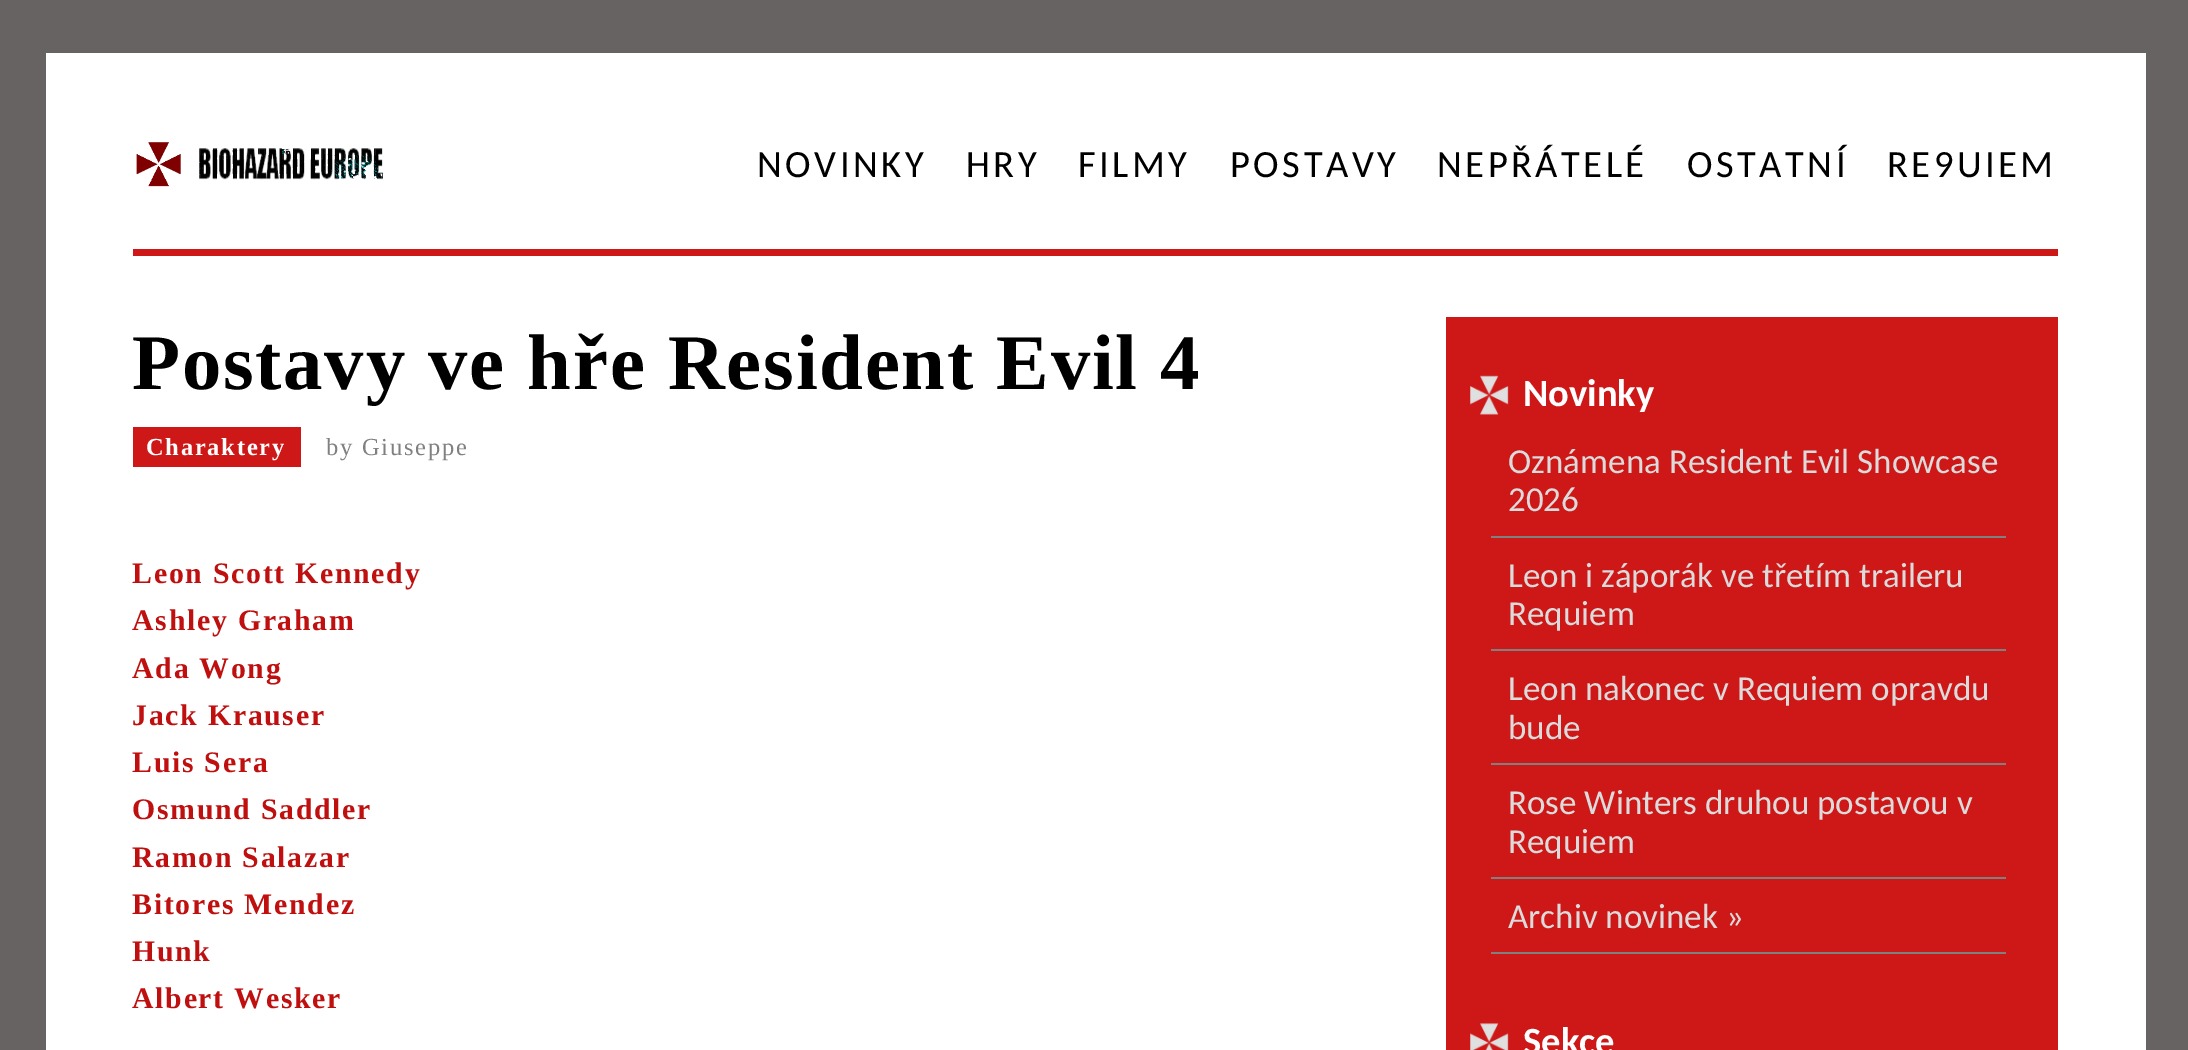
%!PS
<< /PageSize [2188 1050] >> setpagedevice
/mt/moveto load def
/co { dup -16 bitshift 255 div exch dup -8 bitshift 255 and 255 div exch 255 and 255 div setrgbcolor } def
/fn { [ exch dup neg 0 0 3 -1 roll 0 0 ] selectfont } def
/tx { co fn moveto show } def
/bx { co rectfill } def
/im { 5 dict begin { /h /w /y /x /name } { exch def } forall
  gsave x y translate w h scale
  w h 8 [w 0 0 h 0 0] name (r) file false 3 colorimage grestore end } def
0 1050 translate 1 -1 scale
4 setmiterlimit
0 0 2188 1050 16#686363 bx
46 53 2100 997 16#FFFFFF bx
(media/1.raw) 136 142 248 45 im
133 249 1925 7 16#CE1818 bx
133 427 168 40 16#CE1818 bx
1446 317 612 733 16#CE1818 bx
(media/2.raw) 1470 375 39 40 im
1489 536 517 2 16#808080 bx
1489 536 2 1 16#CE1818 bx
1489 649 517 2 16#808080 bx
1489 537 2 114 16#CE1818 bx
1489 763 517 2 16#808080 bx
1489 763 2 2 16#CE1818 bx
1489 877 517 2 16#808080 bx
1489 877 2 2 16#CE1818 bx
1489 952 517 2 16#808080 bx
1489 952 2 2 16#CE1818 bx
(media/3.raw) 1470 1023 39 27 im
/Carlito-Regular 38.5 fn
16#000000 co
757 177 mt 3.5 0 (NOVINKY) ashow
966 177 mt 3.5 0 (HRY) ashow
1078 177 mt 3.5 0 (FILMY) ashow
1230 177 mt 3.5 0 (POSTAVY) ashow
1437 177 mt 3.5 0 (NEPŘÁTELÉ) ashow
1687 177 mt 3.5 0 (OSTATNÍ) ashow
1887 177 mt 3.5 0 (RE9UIEM) ashow
/LiberationSerif-Bold 78.75 fn
132 389 mt 1.75 0 (Postavy ve hře Resident Evil 4) ashow
/LiberationSerif-Bold 24.5 fn
16#FFFFFF co
146 455 mt 1.75 0 (Charaktery) ashow
/LiberationSerif-Regular 24.5 fn
16#808080 co
326 455 mt 1.75 0 (by Giuseppe) ashow
/LiberationSerif-Bold 29.75 fn
16#BF0F0F co
132 583 mt 1.75 0 (Leon Scott Kennedy) ashow
132 630 mt 1.75 0 (Ashley Graham) ashow
132 678 mt 1.75 0 (Ada Wong) ashow
132 725 mt 1.75 0 (Jack Krauser) ashow
132 772 mt 1.75 0 (Luis Sera) ashow
132 819 mt 1.75 0 (Osmund Saddler) ashow
132 867 mt 1.75 0 (Ramon Salazar) ashow
132 914 mt 1.75 0 (Bitores Mendez) ashow
132 961 mt 1.75 0 (Hunk) ashow
132 1008 mt 1.75 0 (Albert Wesker) ashow
(Novinky) 1523 406 /Carlito-Bold 38.5 16#FFFFFF tx
(Oznámena Resident Evil Showcase) 1508 473 /Carlito-Regular 35 16#DBDBDB tx
(2026) 1508 511 /Carlito-Regular 35 16#DBDBDB tx
(Leon i záporák ve třetím traileru) 1508 587 /Carlito-Regular 35 16#DBDBDB tx
(Requiem) 1508 625 /Carlito-Regular 35 16#DBDBDB tx
(Leon nakonec v Requiem opravdu) 1508 700 /Carlito-Regular 35 16#DBDBDB tx
(bude) 1508 739 /Carlito-Regular 35 16#DBDBDB tx
(Rose Winters druhou postavou v) 1508 814 /Carlito-Regular 35 16#DBDBDB tx
(Requiem) 1508 853 /Carlito-Regular 35 16#DBDBDB tx
(Archiv novinek ») 1508 928 /Carlito-Regular 35 16#DBDBDB tx
(Sekce) 1523 1054 /Carlito-Bold 38.5 16#FFFFFF tx
showpage
